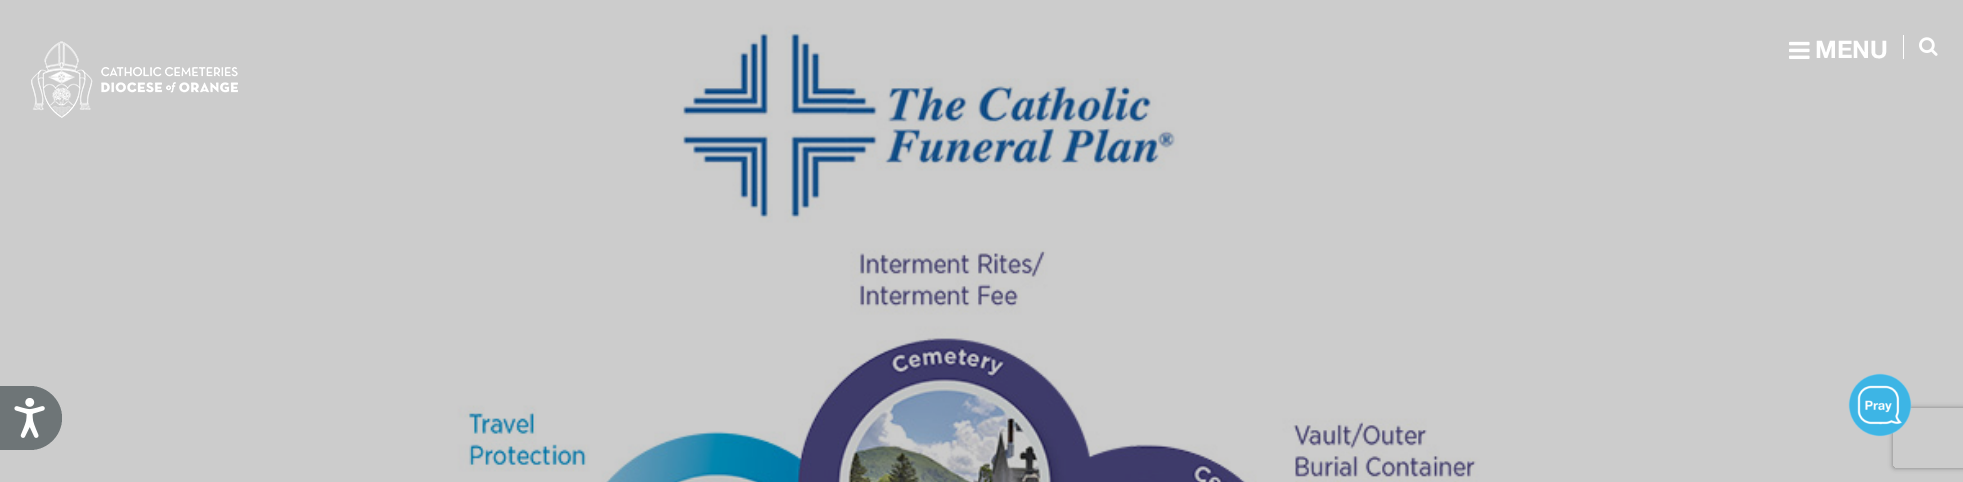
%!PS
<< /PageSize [1963 482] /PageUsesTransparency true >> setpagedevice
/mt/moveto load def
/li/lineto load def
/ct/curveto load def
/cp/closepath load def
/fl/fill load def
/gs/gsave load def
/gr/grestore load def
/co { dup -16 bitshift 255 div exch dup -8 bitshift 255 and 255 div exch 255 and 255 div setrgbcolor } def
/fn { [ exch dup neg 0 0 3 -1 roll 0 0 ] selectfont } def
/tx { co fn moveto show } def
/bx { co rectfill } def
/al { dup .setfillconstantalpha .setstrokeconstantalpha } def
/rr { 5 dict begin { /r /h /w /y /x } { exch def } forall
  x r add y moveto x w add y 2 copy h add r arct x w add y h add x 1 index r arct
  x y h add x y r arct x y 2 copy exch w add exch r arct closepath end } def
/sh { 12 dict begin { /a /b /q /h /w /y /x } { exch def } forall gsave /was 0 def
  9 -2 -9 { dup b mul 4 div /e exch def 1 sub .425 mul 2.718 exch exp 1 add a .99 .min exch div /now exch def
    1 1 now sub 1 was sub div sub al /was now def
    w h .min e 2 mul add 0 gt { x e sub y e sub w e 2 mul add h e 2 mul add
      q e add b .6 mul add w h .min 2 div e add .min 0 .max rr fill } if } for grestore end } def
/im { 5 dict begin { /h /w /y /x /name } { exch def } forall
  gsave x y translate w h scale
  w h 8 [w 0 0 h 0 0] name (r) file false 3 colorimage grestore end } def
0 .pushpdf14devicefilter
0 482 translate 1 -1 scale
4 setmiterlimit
0 0 1963 482 16#FFFFFF bx
(media/1.raw) 0 0 1963 482 im
(media/2.raw) 31 41 207 77 im
(media/3.raw) 1789 41 21 18 im
1903 35 1 24 16#FFFFFF bx
(media/4.raw) 1919 37 19 19 im
16#6E7577 co
0 386 mt 30 386 li 47.5 386 62 400.5 62 418 ct 62 435.5 47.5 450 30 450 ct 0 450 li cp fl
(media/5.raw) 14 398 31 40 im
gs
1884 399 mt 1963 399 li 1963 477 li 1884 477 li cp 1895 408 mt 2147 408 li 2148 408 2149 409 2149 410 ct 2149 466 li 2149 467 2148 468 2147 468 ct 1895 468 li 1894 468 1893 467 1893 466 ct 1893 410 li 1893 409 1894 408 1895 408 ct cp eoclip newpath
16#808080 co
1893 408 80 60 2 2.5 1 sh
gr
(media/6.raw) 1848 373 64 64 im
(MENU) 1815 58 /HelveticaNeue-Bold 24 16#FFFFFF tx
.poppdf14devicefilter showpage
